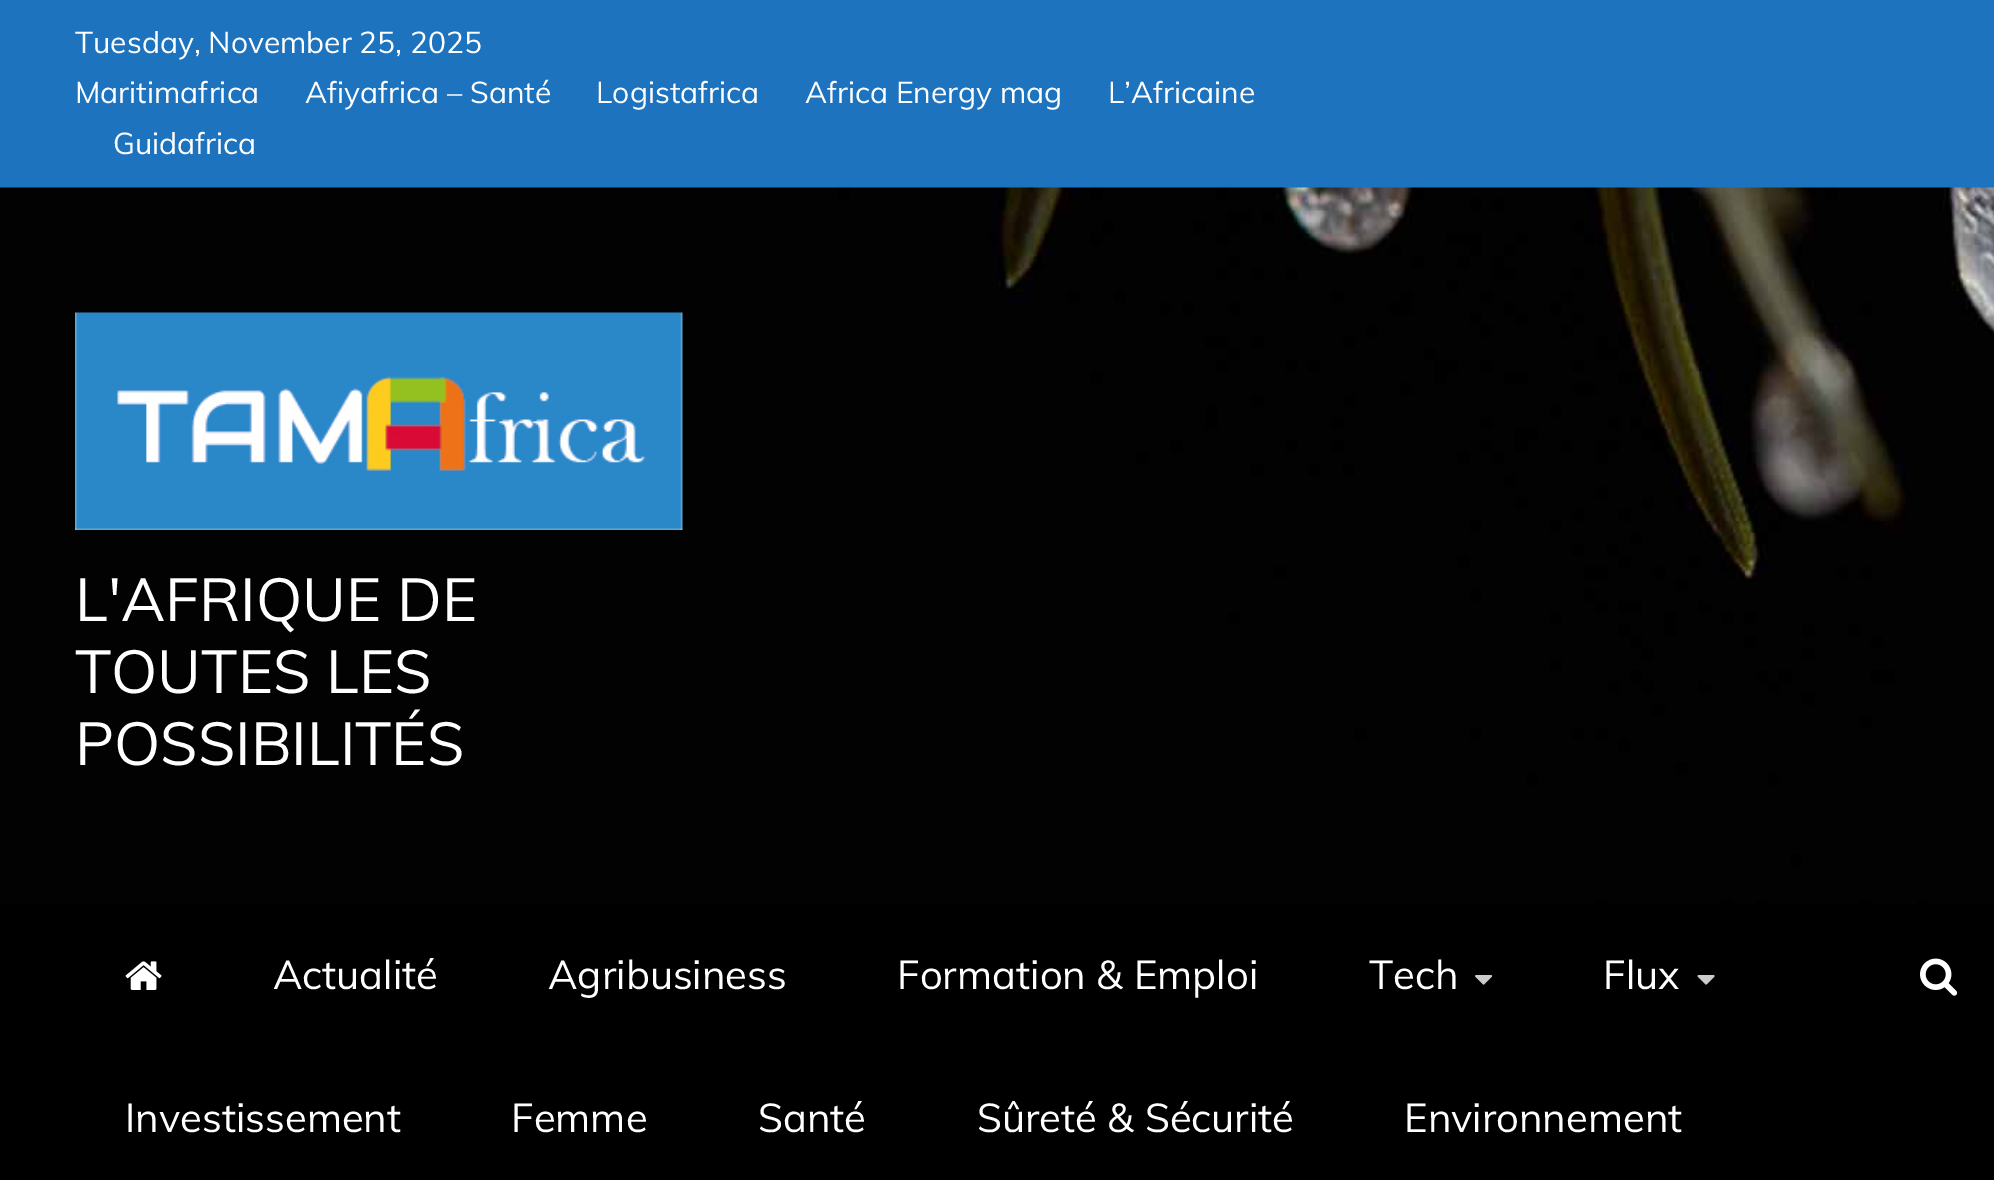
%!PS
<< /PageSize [1994 1180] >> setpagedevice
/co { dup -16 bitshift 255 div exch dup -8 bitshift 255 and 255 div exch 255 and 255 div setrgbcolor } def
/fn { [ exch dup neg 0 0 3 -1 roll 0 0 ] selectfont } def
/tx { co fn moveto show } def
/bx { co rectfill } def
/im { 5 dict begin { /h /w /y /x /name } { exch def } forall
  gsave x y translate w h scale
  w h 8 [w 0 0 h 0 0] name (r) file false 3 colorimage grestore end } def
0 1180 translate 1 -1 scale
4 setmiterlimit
0 0 1994 1180 16#1E73BE bx
(media/1.raw) 0 187 1994 718 im
(media/2.raw) 75 312 608 218 im
0 905 1994 275 16#000000 bx
(media/3.raw) 125 961 37 29 im
(media/4.raw) 1475 975 18 10 im
(media/5.raw) 1697 975 18 10 im
(media/6.raw) 1920 958 38 38 im
(Tuesday, November 25, 2025) 75 53 /Muli-Regular 30 16#FFFFFF tx
(Maritimafrica) 75 103 /Muli-Regular 30 16#FFFFFF tx
(Afiyafrica – Santé) 305 103 /Muli-Regular 30 16#FFFFFF tx
(Logistafrica) 596 103 /Muli-Regular 30 16#FFFFFF tx
(Africa Energy mag) 805 103 /Muli-Regular 30 16#FFFFFF tx
(L’Africaine) 1108 103 /Muli-Regular 30 16#FFFFFF tx
(Guidafrica) 113 154 /Muli-Regular 30 16#FFFFFF tx
(L'AFRIQUE DE) 75 621 /Muli-Regular 60 16#FFFFFF tx
(TOUTES LES) 75 693 /Muli-Regular 60 16#FFFFFF tx
(POSSIBILITÉS) 75 765 /Muli-Regular 60 16#FFFFFF tx
(Actualité) 273 989 /Muli-Regular 40 16#FFFFFF tx
(Agribusiness) 548 989 /Muli-Regular 40 16#FFFFFF tx
(Formation & Emploi) 897 989 /Muli-Regular 40 16#FFFFFF tx
(Tech) 1369 989 /Muli-Regular 40 16#FFFFFF tx
(Flux) 1603 989 /Muli-Regular 40 16#FFFFFF tx
(Investissement) 125 1132 /Muli-Regular 40 16#FFFFFF tx
(Femme) 511 1132 /Muli-Regular 40 16#FFFFFF tx
(Santé) 758 1132 /Muli-Regular 40 16#FFFFFF tx
(Sûreté & Sécurité) 977 1132 /Muli-Regular 40 16#FFFFFF tx
(Environnement) 1404 1132 /Muli-Regular 40 16#FFFFFF tx
showpage
